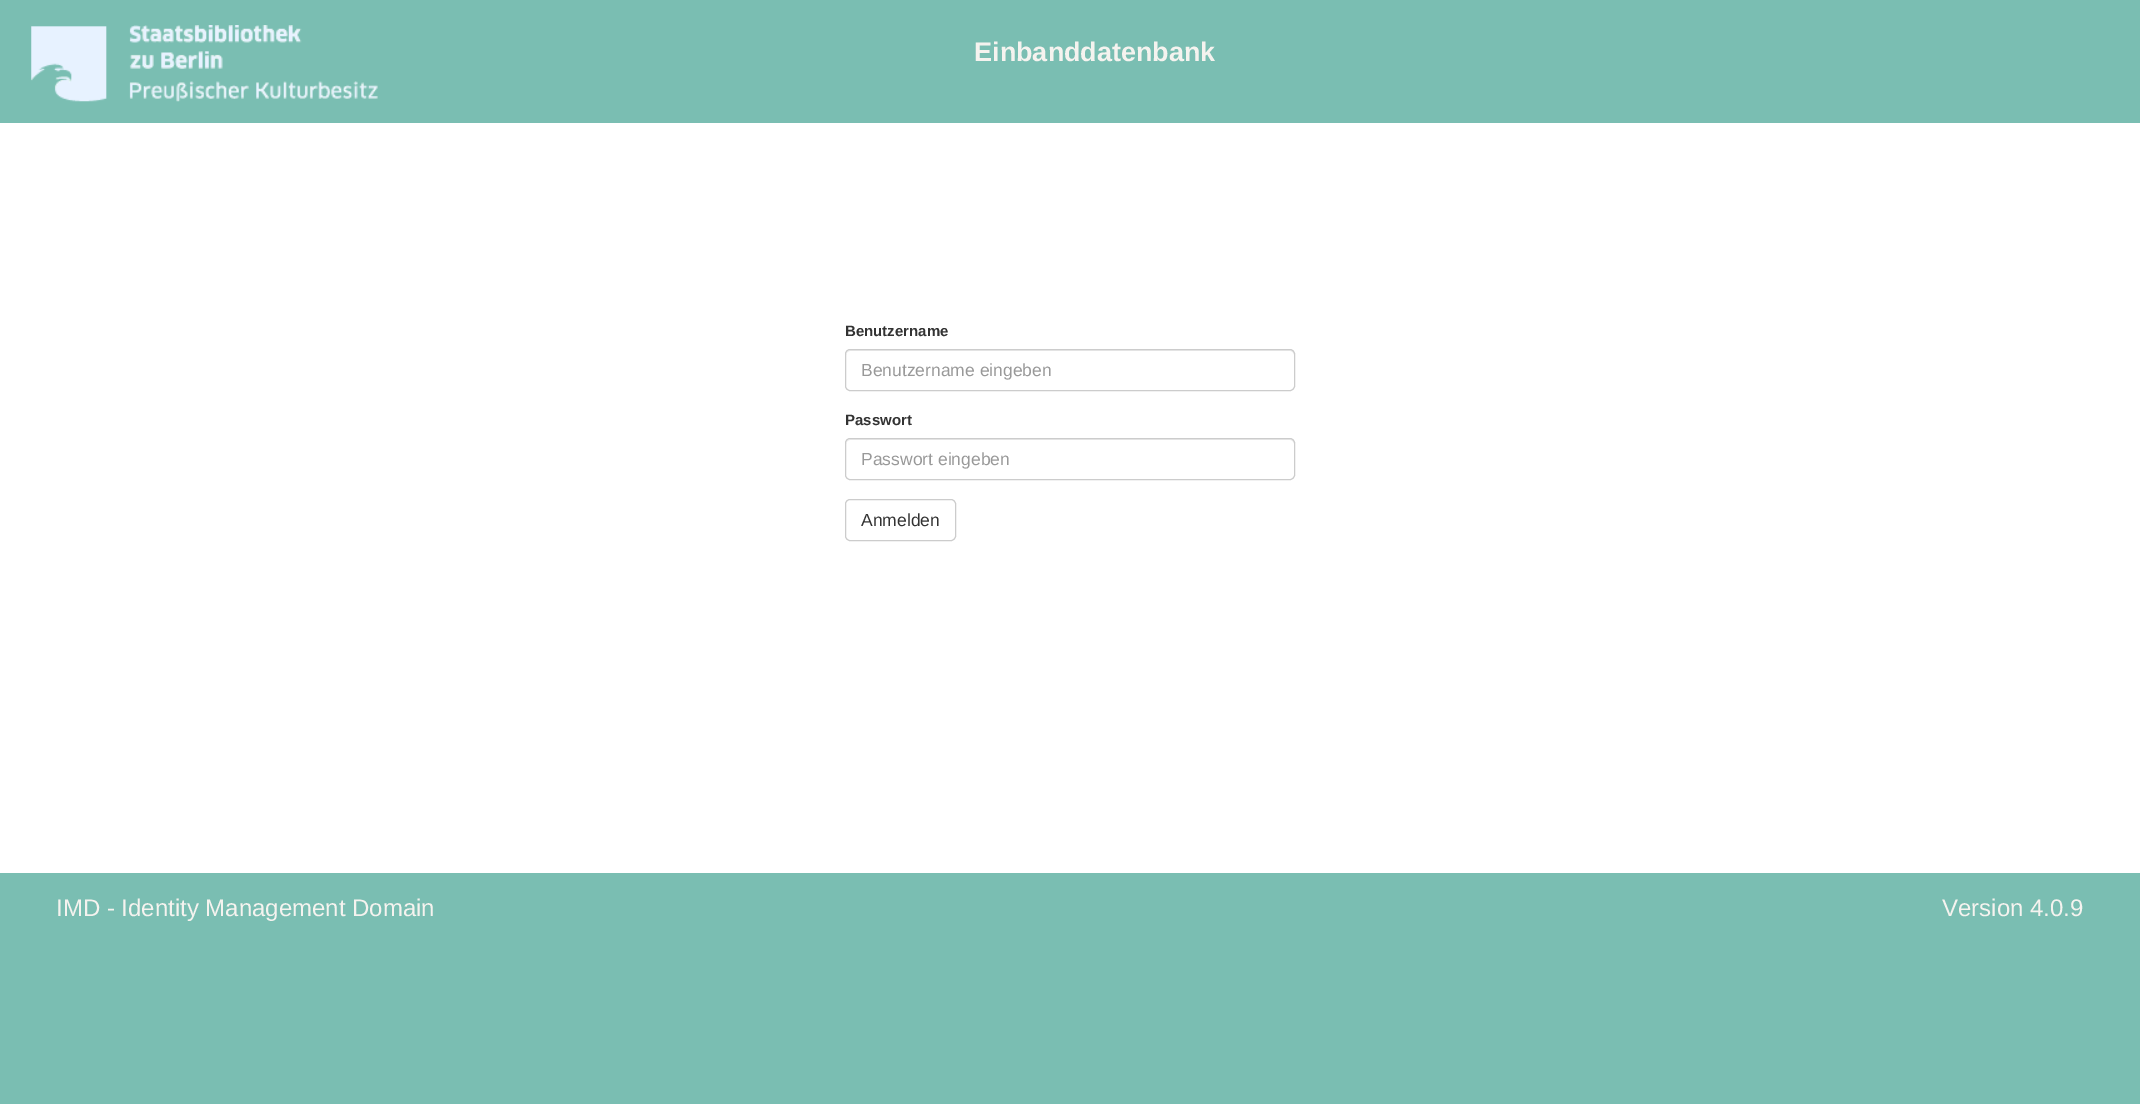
%!PS
<< /PageSize [2140 1104] >> setpagedevice
/mt/moveto load def
/li/lineto load def
/ct/curveto load def
/cp/closepath load def
/fl/fill load def
/st/stroke load def
/co { dup -16 bitshift 255 div exch dup -8 bitshift 255 and 255 div exch 255 and 255 div setrgbcolor } def
/fn { [ exch dup neg 0 0 3 -1 roll 0 0 ] selectfont } def
/tx { co fn moveto show } def
/bx { co rectfill } def
/rr { 5 dict begin { /r /h /w /y /x } { exch def } forall
  x r add y moveto x w add y 2 copy h add r arct x w add y h add x 1 index r arct
  x y h add x y r arct x y 2 copy exch w add exch r arct closepath end } def
/im { 5 dict begin { /h /w /y /x /name } { exch def } forall
  gsave x y translate w h scale
  w h 8 [w 0 0 h 0 0] name (r) file false 3 colorimage grestore end } def
0 1104 translate 1 -1 scale
4 setmiterlimit
0 0 2140 1104 16#7ABEB2 bx
(media/1.raw) 31 25 347 77 im
0 123 2140 750 16#FFFFFF bx
16#ECECEC co
850 351 mt 1290 351 li 1292 351 1294 353 1294 355 ct 1294 352 1293 350 1290 350 ct 850 350 li 848 351 li 847 352 li 846 355 li 846 353 848 351 850 351 ct cp fl
16#CCCCCC co
845.5 349.5 449 41 4.5 rr st
16#ECECEC co
850 440 mt 1290 440 li 1292 440 1294 442 1294 444 ct 1294 441 1293 439 1290 439 ct 850 439 li 848 440 li 847 441 li 846 444 li 846 442 848 440 850 440 ct cp fl
16#CCCCCC co
845.5 438.5 449 41 4.5 rr st
845.5 499.5 110 41 4.5 rr st
(Einbanddatenbank) 974 61 /LiberationSans-Bold 27 16#F5F3EF tx
(Benutzername) 845 336 /LiberationSans-Bold 15 16#333333 tx
(Benutzername eingeben) 861 376 /LiberationSans-Regular 17.5 16#999999 tx
(Passwort) 845 425 /LiberationSans-Bold 15 16#333333 tx
(Passwort eingeben) 861 465 /LiberationSans-Regular 17.5 16#999999 tx
(Anmelden) 861 526 /LiberationSans-Regular 17.5 16#333333 tx
(IMD - Identity Management Domain) 56 916 /LiberationSans-Regular 24 16#F5F3EF tx
(Version 4.0.9) 1942 916 /LiberationSans-Regular 24 16#F5F3EF tx
showpage
